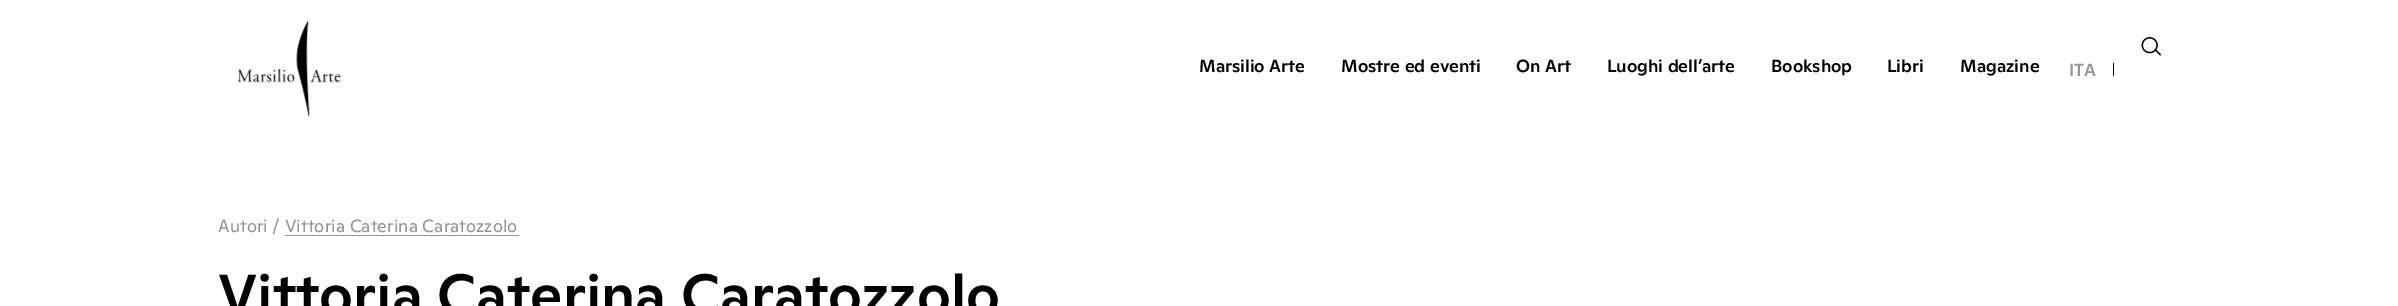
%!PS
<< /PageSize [2398 306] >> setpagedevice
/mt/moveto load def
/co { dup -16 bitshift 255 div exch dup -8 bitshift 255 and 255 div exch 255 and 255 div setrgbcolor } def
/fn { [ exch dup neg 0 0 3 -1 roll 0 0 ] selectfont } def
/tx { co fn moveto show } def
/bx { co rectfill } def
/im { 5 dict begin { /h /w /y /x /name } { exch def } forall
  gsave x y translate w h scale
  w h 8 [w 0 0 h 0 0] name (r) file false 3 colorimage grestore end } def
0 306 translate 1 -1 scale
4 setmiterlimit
0 0 2398 306 16#FFFFFF bx
(media/1.raw) 237 21 105 96 im
(media/2.raw) 2141 37 20 19 im
2113 63 1 13 16#000000 bx
285 235 234 1 16#969696 bx
(Marsilio Arte) 1199 72 /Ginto-Medium 17.5 16#000000 tx
(Mostre ed eventi) 1341 72 /Ginto-Medium 17.5 16#000000 tx
(On Art) 1516 72 /Ginto-Medium 17.5 16#000000 tx
(Luoghi dell’arte) 1607 72 /Ginto-Medium 17.5 16#000000 tx
(Bookshop) 1771 72 /Ginto-Medium 17.5 16#000000 tx
(Libri) 1887 72 /Ginto-Medium 17.5 16#000000 tx
(Magazine) 1960 72 /Ginto-Medium 17.5 16#000000 tx
(ITA) 2069 76 /Ginto-Medium 17.5 16#969696 tx
/Ginto-Regular 17.5 fn
218 232 mt .1 0 (Autori / Vittoria Caterina Caratozzolo) ashow
(Vittoria Caterina Caratozzolo) 218 315 /Ginto-Medium 57.5 16#000000 tx
showpage
